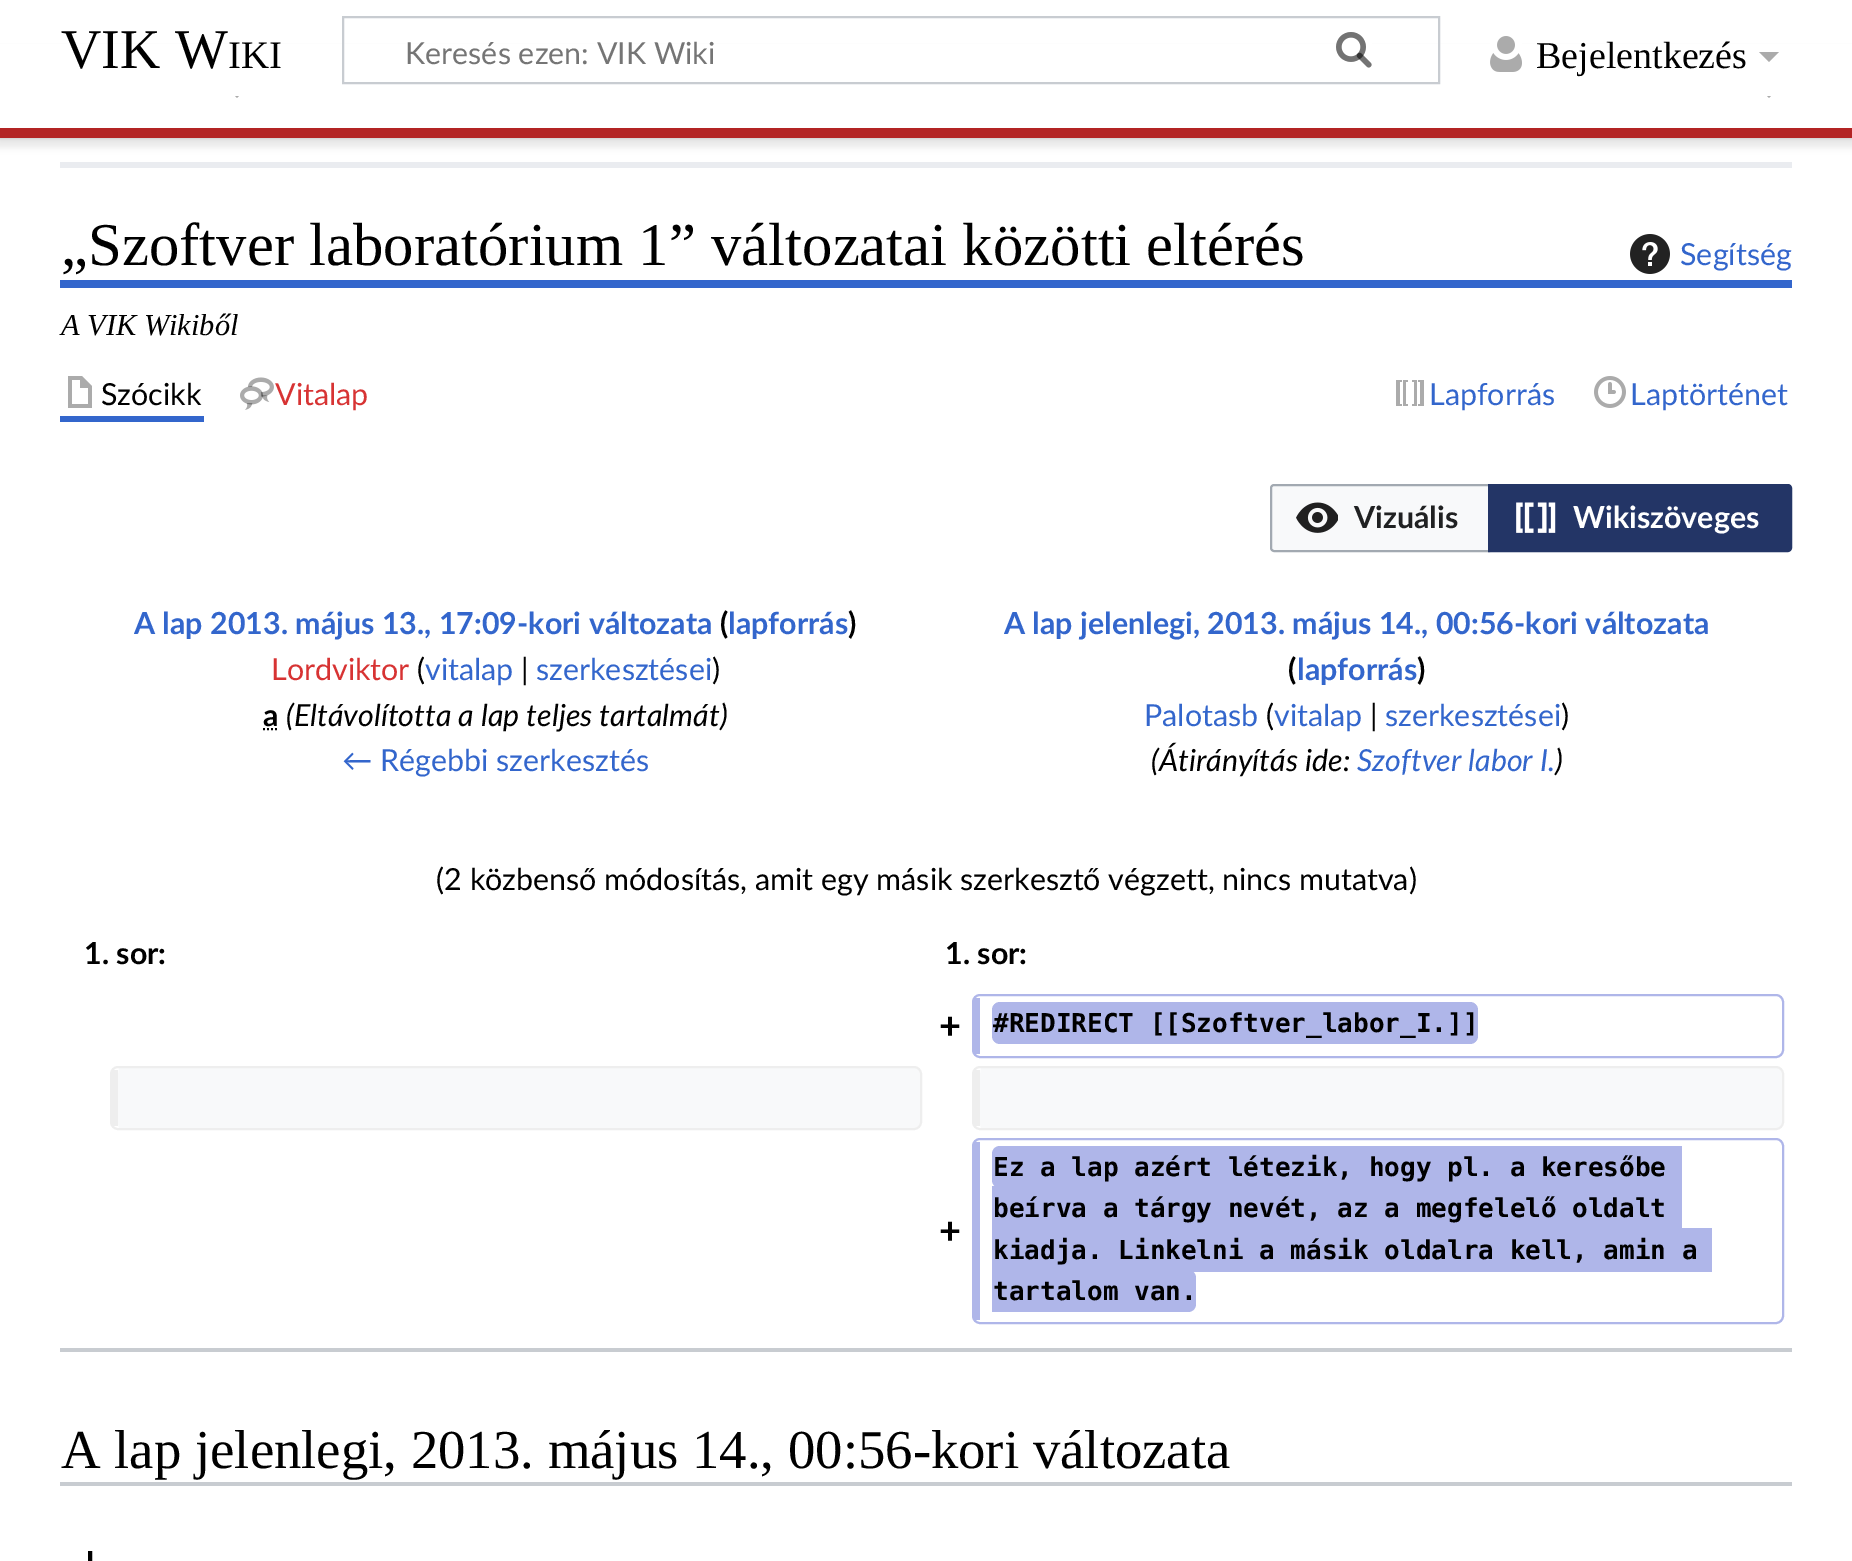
%!PS
<< /PageSize [1852 1561] /PageUsesTransparency true >> setpagedevice
/mt/moveto load def
/li/lineto load def
/ct/curveto load def
/cp/closepath load def
/fl/fill load def
/st/stroke load def
/gs/gsave load def
/gr/grestore load def
/lw/setlinewidth load def
/co { dup -16 bitshift 255 div exch dup -8 bitshift 255 and 255 div exch 255 and 255 div setrgbcolor } def
/fn { [ exch dup neg 0 0 3 -1 roll 0 0 ] selectfont } def
/tx { co fn moveto show } def
/bx { co rectfill } def
/al { dup .setfillconstantalpha .setstrokeconstantalpha } def
/rr { 5 dict begin { /r /h /w /y /x } { exch def } forall
  x r add y moveto x w add y 2 copy h add r arct x w add y h add x 1 index r arct
  x y h add x y r arct x y 2 copy exch w add exch r arct closepath end } def
/sh { 12 dict begin { /a /b /q /h /w /y /x } { exch def } forall gsave /was 0 def
  9 -2 -9 { dup b mul 4 div /e exch def 1 sub .425 mul 2.718 exch exp 1 add a .99 .min exch div /now exch def
    1 1 now sub 1 was sub div sub al /was now def
    w h .min e 2 mul add 0 gt { x e sub y e sub w e 2 mul add h e 2 mul add
      q e add b .6 mul add w h .min 2 div e add .min 0 .max rr fill } if } for grestore end } def
/im { 5 dict begin { /h /w /y /x /name } { exch def } forall
  gsave x y translate w h scale
  w h 8 [w 0 0 h 0 0] name (r) file false 3 colorimage grestore end } def
0 .pushpdf14devicefilter
0 1561 translate 1 -1 scale
4 setmiterlimit
0 0 1852 1561 16#FFFFFF bx
16#000000 co
0 48 1852 90 0 2 .2 sh
-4 50 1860 98 0 3 .07 sh
0 96 1852 32 16#FFFFFF bx
16#ABABAB co
247 88 mt 237 98 li 227 88 li cp fl
1779 88 mt 1769 98 li 1759 88 li cp fl
0 44 1852 52 16#FFFFFF bx
16#C8CCD1 co
2 lw
343 17 1096 66 rectstroke
(media/1.raw) 1336 32 36 36 im
(media/2.raw) 1336 32 36 36 im
(media/3.raw) 1490 36 32 36 im
16#ABABAB co
1779 52 mt 1769 62 li 1759 52 li cp fl
0 128 1852 10 16#B32424 bx
60 162 1732 2 16#EAECF0 bx
1790 162 2 6 16#EAECF0 bx
60 164 1732 4 16#EAECF0 bx
60 280 1732 8 16#3366CC bx
(media/4.raw) 1630 234 40 40 im
60 416 144 6 16#3366CC bx
16#ABABAB co
68 376 mt 68 408 li 92 408 li 92 386 li 82 376 li cp 72 380 mt 80 380 li 80 388 li 88 388 li 88 404 li 72 404 li cp fl
(media/5.raw) 240 377 34 33 im
(media/6.raw) 1396 380 28 26 im
(media/7.raw) 1594 376 32 32 im
16#F8F9FA co
1274 485 mt 1489 485 li 1489 551 li 1274 551 li 1272.5 551 1271 549.5 1271 548 ct 1271 488 li 1271 486.5 1272.5 485 1274 485 ct cp gs fl gr
16#A2A9B1 co
st
(media/8.raw) 1296 502 42 31 im
16#233566 co
1489 485 mt 1788 485 li 1789.5 485 1791 486.5 1791 488 ct 1791 548 li 1791 549.5 1789.5 551 1788 551 ct 1489 551 li cp gs fl gr
st
(media/9.raw) 1516 502 40 31 im
16#000000 co
[2 2] 0 setdash
263 729 mt 278.5 729 li st
16#AFB6E9 co
[] 0 setdash
973 995 810 62 7 rr st
974 998 6 56 16#AFB6E9 bx
992 1002 486 42 8 rr fl
16#F8F9FA co
119 1068 mt 915 1068 li 921 1069 920 1078 920 1082 ct 920 1121 li 920 1125 917 1128 913 1128 ct 119 1128 li 118 1124 li 118 1075 li cp fl
16#EEEEEE co
111 1067 810 62 7 rr st
112 1070 6 56 16#EEEEEE bx
16#F8F9FA co
981 1068 mt 1777 1068 li 1783 1069 1782 1078 1782 1082 ct 1782 1121 li 1782 1125 1779 1128 1775 1128 ct 981 1128 li 980 1124 li 980 1075 li cp fl
16#EEEEEE co
973 1067 810 62 7 rr st
974 1070 6 56 16#EEEEEE bx
16#AFB6E9 co
973 1139 810 184 7 rr st
974 1142 6 178 16#AFB6E9 bx
1000 1146 mt 1682 1146 li 1682 1188 li 1000 1188 li 995.5 1188 992 1184.5 992 1180 ct 992 1154 li 992 1149.5 995.5 1146 1000 1146 ct cp fl
992 1186 690 42 16#AFB6E9 bx
992 1228 720 44 16#AFB6E9 bx
992 1270 mt 1188 1270 li 1192.5 1270 1196 1273.5 1196 1278 ct 1196 1304 li 1196 1308.5 1192.5 1312 1188 1312 ct 992 1312 li cp fl
60 1348 1732 4 16#C8CCD1 bx
60 1482 1732 4 16#C8CCD1 bx
16#000000 co
4 lw
90 1551 mt 90 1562.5 li 90 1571 89.5 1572 98 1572 ct 112 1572 li st
(VIK W) 61 68 /LiberationSerif-Regular 56 16#000000 tx
(IKI) 228 68 /LiberationSerif-Regular 39 16#000000 tx
(Keresés ezen: VIK Wiki) 405 64 /Lato-Regular 30.4 16#757575 tx
(Bejelentkezés) 1536 68 /LiberationSerif-Regular 38 16#000000 tx
(„Szoftver laboratórium 1” változatai közötti eltérés) 61 265 /LiberationSerif-Regular 60.8 16#000000 tx
(Segítség) 1680 265 /Lato-Regular 30.4 16#3366CC tx
(A VIK Wikiből) 61 335 /LiberationSerif-Italic 30.4 16#000000 tx
(Szócikk) 101 405 /Lato-Regular 30.4 16#000000 tx
(Vitalap) 275 405 /Lato-Regular 30.4 16#D73333 tx
(Lapforrás) 1429 405 /Lato-Regular 30.4 16#3366CC tx
(Laptörténet) 1630 405 /Lato-Regular 30.4 16#3366CC tx
(Vizuális) 1354 528 /Lato-Bold 30.4 16#202122 tx
(Wikiszöveges) 1573 528 /Lato-Bold 30.4 16#FFFFFF tx
(A lap 2013. május 13., 17:09-kori változata) 134 634 /Lato-Bold 30.4 16#3366CC tx
(\() 720 634 /Lato-Bold 30.4 16#000000 tx
(lapforrás) 728 634 /Lato-Bold 30.4 16#3366CC tx
(\)) 848 634 /Lato-Bold 30.4 16#000000 tx
(Lordviktor) 271 680 /Lato-Regular 30.4 16#D73333 tx
(\() 417 680 /Lato-Regular 30.4 16#000000 tx
(vitalap) 425 680 /Lato-Regular 30.4 16#3366CC tx
(|) 521 680 /Lato-Regular 30.4 16#000000 tx
(szerkesztései) 536 680 /Lato-Regular 30.4 16#3366CC tx
(\)) 712 680 /Lato-Regular 30.4 16#000000 tx
(a) 263 726 /Lato-Bold 30.4 16#000000 tx
(\(Eltávolította a lap teljes tartalmát) 286 726 /Lato-Italic 30.4 16#000000 tx
(\)) 720 726 /Lato-Italic 30.4 16#000000 tx
(← Régebbi szerkesztés) 342 771 /Lato-Regular 30.4 16#3366CC tx
(A lap jelenlegi, 2013. május 14., 00:56-kori változata) 1004 634 /Lato-Bold 30.4 16#3366CC tx
(\() 1288 680 /Lato-Bold 30.4 16#000000 tx
(lapforrás) 1297 680 /Lato-Bold 30.4 16#3366CC tx
(\)) 1417 680 /Lato-Bold 30.4 16#000000 tx
(Palotasb) 1144 726 /Lato-Regular 30.4 16#3366CC tx
(\() 1266 726 /Lato-Regular 30.4 16#000000 tx
(vitalap) 1274 726 /Lato-Regular 30.4 16#3366CC tx
(|) 1370 726 /Lato-Regular 30.4 16#000000 tx
(szerkesztései) 1385 726 /Lato-Regular 30.4 16#3366CC tx
(\)) 1561 726 /Lato-Regular 30.4 16#000000 tx
(\(Átirányítás ide:) 1151 771 /Lato-Italic 30.4 16#000000 tx
(Szoftver labor I.) 1357 771 /Lato-Italic 30.4 16#3366CC tx
(\)) 1555 771 /Lato-Italic 30.4 16#000000 tx
(\(2 közbenső módosítás, amit egy másik szerkesztő végzett, nincs mutatva\)) 436 890 /Lato-Regular 30.4 16#000000 tx
(1. sor:) 84 964 /Lato-Bold 30.4 16#000000 tx
(1. sor:) 945 964 /Lato-Bold 30.4 16#000000 tx
(+) 939 1039 /Lato-Bold 38 16#000000 tx
(#REDIRECT [[Szoftver_labor_I.]]) 993 1032 /DejaVuSansMono-Bold 26 16#000000 tx
(+) 939 1244 /Lato-Bold 38 16#000000 tx
(Ez a lap azért létezik, hogy pl. a keresőbe) 993 1176 /DejaVuSansMono-Bold 26 16#000000 tx
(beírva a tárgy nevét, az a megfelelő oldalt) 993 1217 /DejaVuSansMono-Bold 26 16#000000 tx
(kiadja. Linkelni a másik oldalra kell, amin a) 993 1259 /DejaVuSansMono-Bold 26 16#000000 tx
(tartalom van.) 993 1300 /DejaVuSansMono-Bold 26 16#000000 tx
(A lap jelenlegi, 2013. május 14., 00:56-kori változata) 61 1468 /LiberationSerif-Regular 54.75 16#000000 tx
.poppdf14devicefilter showpage
